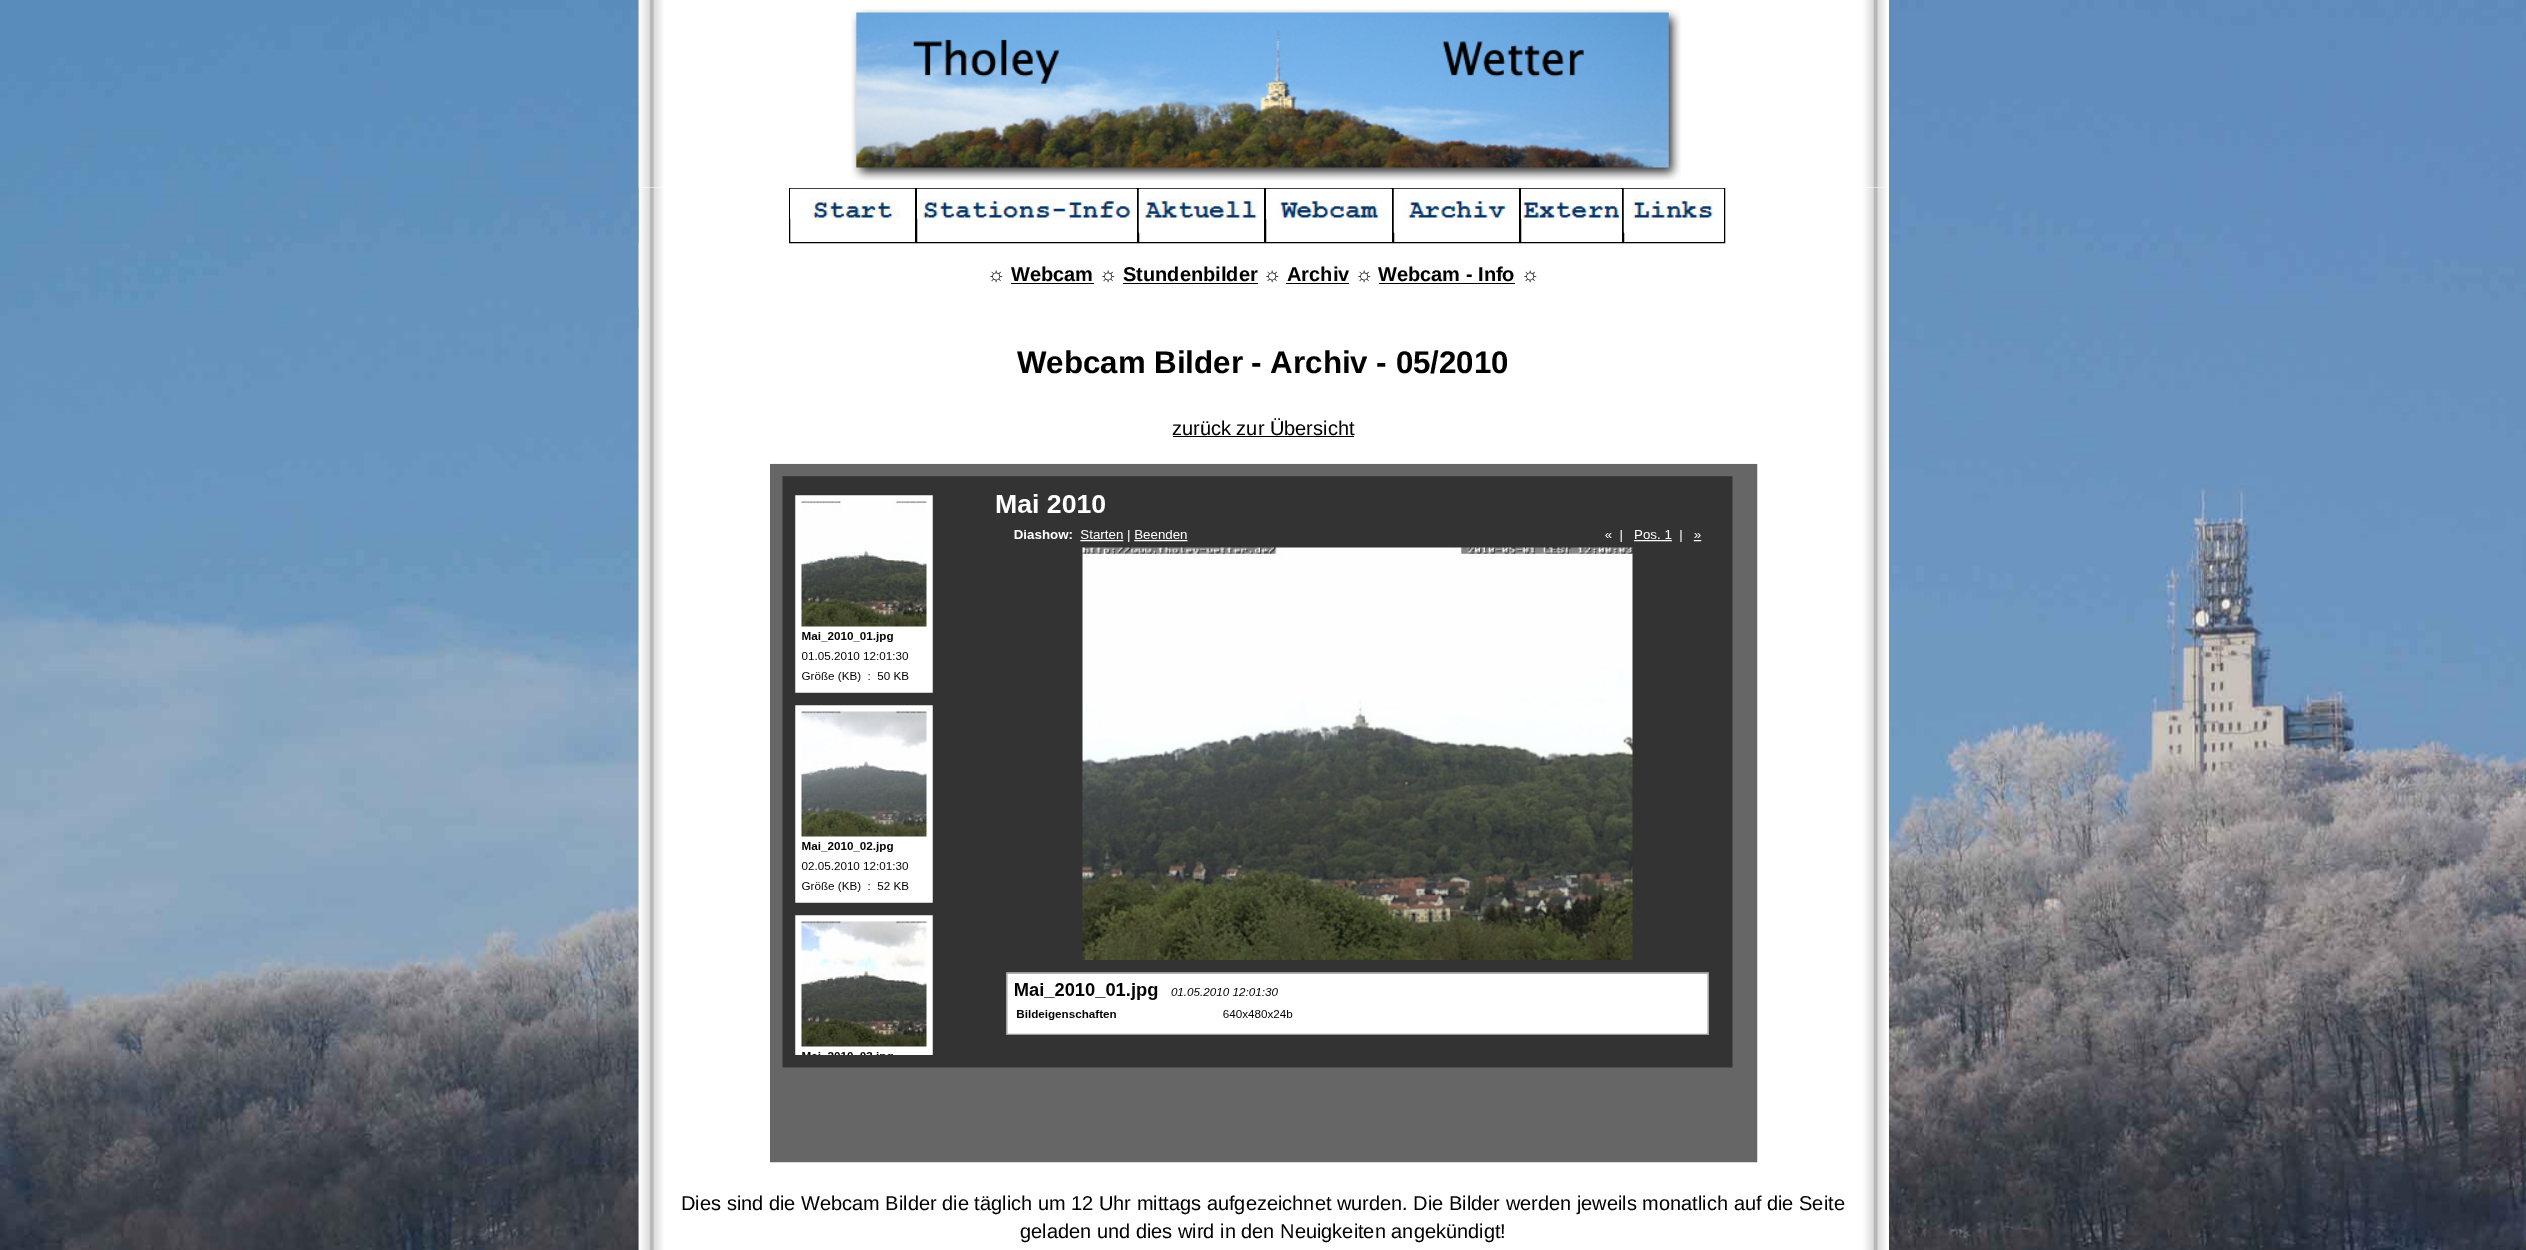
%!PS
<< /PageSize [2526 1250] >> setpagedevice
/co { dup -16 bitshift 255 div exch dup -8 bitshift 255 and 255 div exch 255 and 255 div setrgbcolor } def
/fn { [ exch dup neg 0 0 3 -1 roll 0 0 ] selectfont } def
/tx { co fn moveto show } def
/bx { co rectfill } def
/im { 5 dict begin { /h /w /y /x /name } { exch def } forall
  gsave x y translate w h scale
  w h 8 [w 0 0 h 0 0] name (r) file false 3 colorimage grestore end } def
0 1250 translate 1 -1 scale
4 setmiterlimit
0 0 2526 1250 16#FFFFFF bx
(media/1.raw) 0 0 2526 1250 im
1887 188 2 1062 16#FFFFFF bx
(media/2.raw) 638 0 1249 1250 im
640 0 1249 188 16#FFFFFF bx
(media/3.raw) 638 0 1249 188 im
(media/4.raw) 850 9 831 171 im
16#000000 co
789.5 188.5 126 54 rectstroke
(media/5.raw) 790 188 125 31 im
916.5 188.5 221 54 rectstroke
(media/6.raw) 917 188 220 31 im
1138.5 188.5 126 54 rectstroke
(media/7.raw) 1138 188 126 45 im
1265.5 188.5 127 54 rectstroke
(media/8.raw) 1266 188 126 31 im
1393.5 188.5 126 54 rectstroke
(media/9.raw) 1393 188 126 45 im
1520.5 188.5 102 54 rectstroke
(media/10.raw) 1521 188 101 31 im
1623.5 188.5 101 54 rectstroke
(media/11.raw) 1623 188 101 45 im
(media/12.raw) 638 242 1 66 im
1011 283 83 1 16#000000 bx
1123 283 135 1 16#000000 bx
1286 283 63 1 16#000000 bx
1379 283 136 1 16#000000 bx
(media/13.raw) 638 327 1 923 im
1173 436 181 1 16#000000 bx
(media/14.raw) 770 463 988 700 im
(☼) 987 281 /LiberationSans-Regular 20 16#000000 tx
(Webcam) 1011 281 /LiberationSans-Bold 20 16#000000 tx
(☼) 1099 281 /LiberationSans-Regular 20 16#000000 tx
(Stundenbilder) 1123 281 /LiberationSans-Bold 20 16#000000 tx
(☼) 1263 281 /LiberationSans-Regular 20 16#000000 tx
(Archiv) 1287 281 /LiberationSans-Bold 20 16#000000 tx
(☼) 1355 281 /LiberationSans-Regular 20 16#000000 tx
(Webcam - Info) 1378 281 /LiberationSans-Bold 20 16#000000 tx
(☼) 1521 281 /LiberationSans-Regular 20 16#000000 tx
(Webcam Bilder - Archiv - 05/2010) 1017 373 /LiberationSans-Bold 31.25 16#000000 tx
(zurück zur Übersicht) 1172 435 /LiberationSans-Regular 20 16#000000 tx
(Dies sind die Webcam Bilder die täglich um 12 Uhr mittags aufgezeichnet wurden. Die Bilder werden jeweils monatlich auf die Seite) 681 1210 /LiberationSans-Regular 20 16#000000 tx
(geladen und dies wird in den Neuigkeiten angekündigt!) 1020 1238 /LiberationSans-Regular 20 16#000000 tx
showpage
